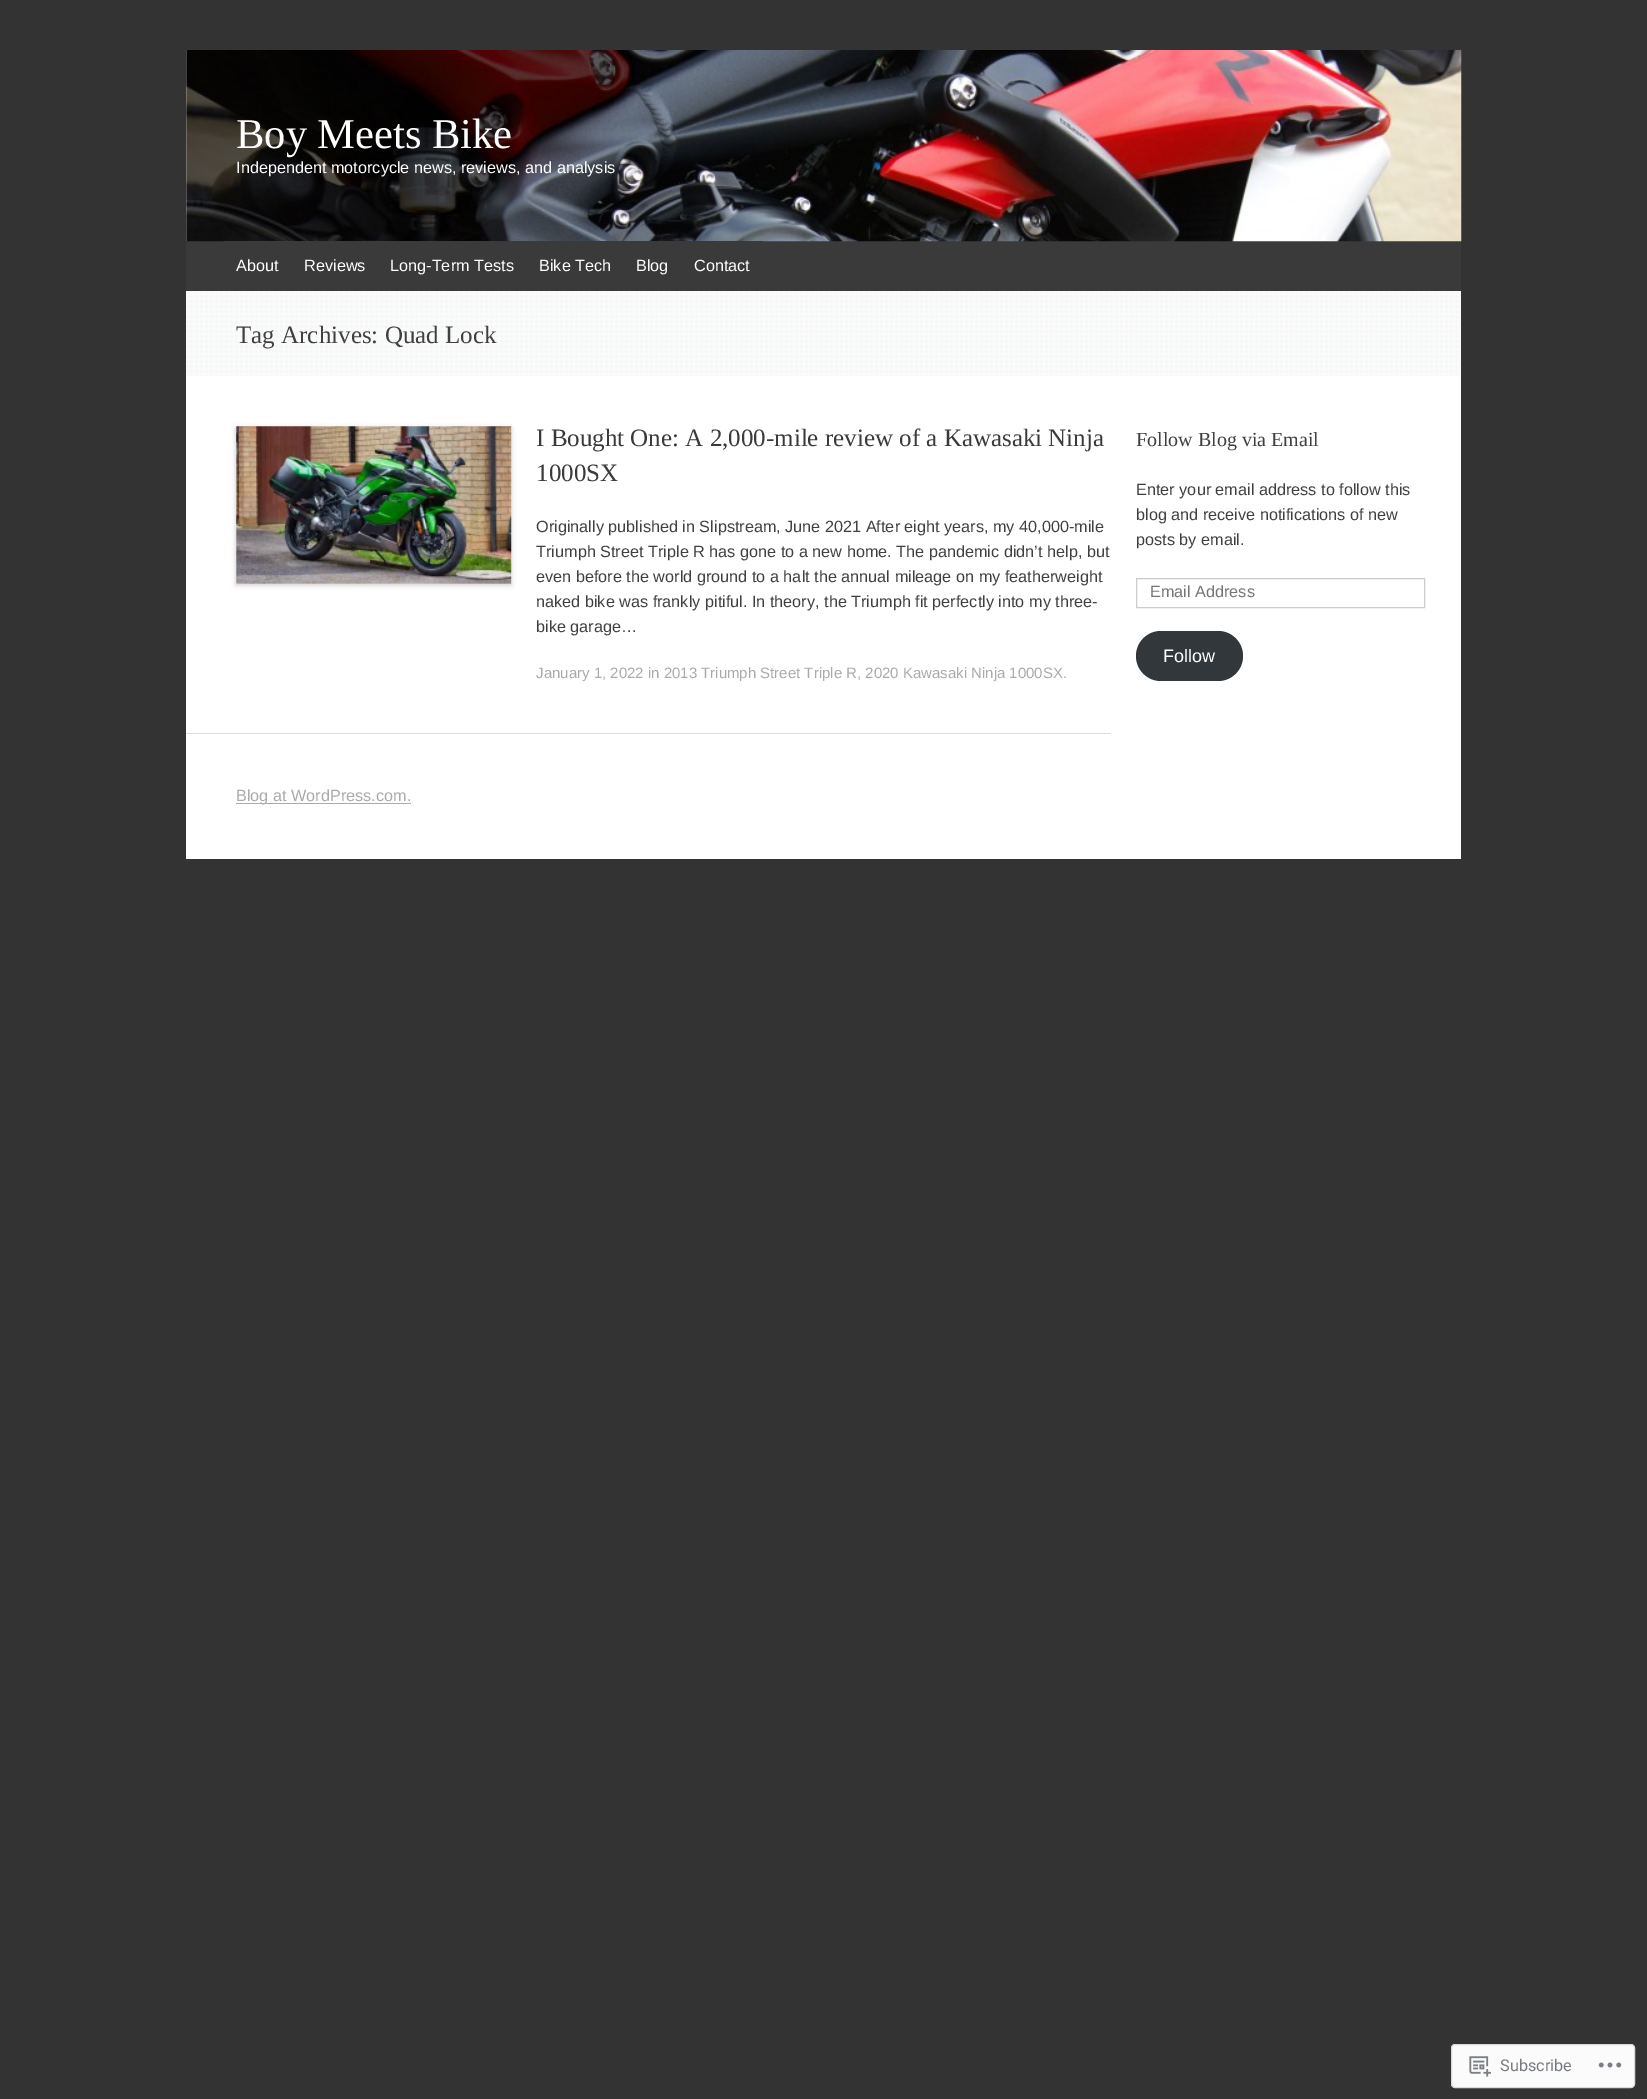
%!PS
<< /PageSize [1647 2099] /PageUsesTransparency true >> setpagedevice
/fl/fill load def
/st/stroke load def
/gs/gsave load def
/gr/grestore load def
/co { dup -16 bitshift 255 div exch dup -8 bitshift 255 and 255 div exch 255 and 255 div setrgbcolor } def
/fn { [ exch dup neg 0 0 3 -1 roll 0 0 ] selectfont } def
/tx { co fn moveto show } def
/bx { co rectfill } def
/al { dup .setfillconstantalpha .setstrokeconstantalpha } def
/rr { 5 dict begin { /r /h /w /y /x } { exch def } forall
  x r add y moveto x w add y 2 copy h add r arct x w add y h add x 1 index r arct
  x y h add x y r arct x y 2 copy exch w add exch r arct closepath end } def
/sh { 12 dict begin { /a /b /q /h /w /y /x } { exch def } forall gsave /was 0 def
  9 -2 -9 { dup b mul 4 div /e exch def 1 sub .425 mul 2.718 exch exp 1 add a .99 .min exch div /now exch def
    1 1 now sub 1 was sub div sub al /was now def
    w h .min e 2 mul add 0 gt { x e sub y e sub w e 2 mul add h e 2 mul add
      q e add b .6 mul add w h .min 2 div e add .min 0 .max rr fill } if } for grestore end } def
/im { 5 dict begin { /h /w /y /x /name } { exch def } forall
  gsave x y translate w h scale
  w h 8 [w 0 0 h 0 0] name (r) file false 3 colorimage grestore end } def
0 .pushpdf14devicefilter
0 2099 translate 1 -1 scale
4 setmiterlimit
0 0 1647 2099 16#333333 bx
186 50 1275 809 16#FFFFFF bx
186 241 1275 50 16#3A3A3A bx
(media/1.raw) 186 50 1276 192 im
224 241 539 1 16#3A3A3A bx
(media/2.raw) 186 291 1276 85 im
186 733 925 1 16#DDDDDD bx
16#000000 co
236 428 275 157 0 2.5 .2 sh
(media/3.raw) 236 426 276 158 im
16#CCCCCC co
1136.5 578.5 288 29 rectstroke
16#32373C co
1136 631 107 50 25 rr fl
236 803 175 1 16#AAAAAA bx
16#FBFBFB co
1451.5 2044.5 183 43 3.5 rr gs fl gr
16#D9D9DB co
st
(media/4.raw) 1469 2056 22 21 im
(media/5.raw) 1598 2062 24 6 im
(Boy Meets Bike) 236 148 /LiberationSerif-Regular 42.5 16#FFFFFF tx
(Independent motorcycle news, reviews, and analysis) 236 173 /LiberationSans-Regular 16.25 16#FFFFFF tx
(About) 236 271 /LiberationSans-Regular 16.25 16#FFFFFF tx
(Reviews) 304 271 /LiberationSans-Regular 16.25 16#FFFFFF tx
(Long-Term Tests) 390 271 /LiberationSans-Regular 16.25 16#FFFFFF tx
(Bike Tech) 539 271 /LiberationSans-Regular 16.25 16#FFFFFF tx
(Blog) 636 271 /LiberationSans-Regular 16.25 16#FFFFFF tx
(Contact) 694 271 /LiberationSans-Regular 16.25 16#FFFFFF tx
(Tag Archives: Quad Lock) 236 343 /LiberationSerif-Regular 25 16#404040 tx
(I Bought One: A 2,000-mile review of a Kawasaki Ninja) 536 446 /LiberationSerif-Regular 25 16#3A3A3A tx
(1000SX) 536 481 /LiberationSerif-Regular 25 16#3A3A3A tx
(Originally published in Slipstream, June 2021 After eight years, my 40,000-mile) 536 532 /LiberationSans-Regular 16.25 16#404040 tx
(Triumph Street Triple R has gone to a new home. The pandemic didn’t help, but) 536 557 /LiberationSans-Regular 16.25 16#404040 tx
(even before the world ground to a halt the annual mileage on my featherweight) 536 582 /LiberationSans-Regular 16.25 16#404040 tx
(naked bike was frankly pitiful. In theory, the Triumph fit perfectly into my three-) 536 607 /LiberationSans-Regular 16.25 16#404040 tx
(bike garage…) 536 632 /LiberationSans-Regular 16.25 16#404040 tx
(January 1, 2022 in 2013 Triumph Street Triple R, 2020 Kawasaki Ninja 1000SX.) 536 678 /LiberationSans-Regular 15 16#AAAAAA tx
(Follow Blog via Email) 1136 446 /LiberationSerif-Regular 20 16#404040 tx
(Enter your email address to follow this) 1136 495 /LiberationSans-Regular 16.25 16#404040 tx
(blog and receive notifications of new) 1136 520 /LiberationSans-Regular 16.25 16#404040 tx
(posts by email.) 1136 545 /LiberationSans-Regular 16.25 16#404040 tx
(Email Address) 1150 597 /LiberationSans-Regular 16.25 16#757575 tx
(Follow) 1163 662 /LiberationSans-Regular 18 16#FFFFFF tx
(Blog at WordPress.com.) 236 801 /LiberationSans-Regular 16.25 16#AAAAAA tx
(Subscribe) 1500 2071 /Roboto-Regular 16.25 16#777B80 tx
.poppdf14devicefilter showpage
